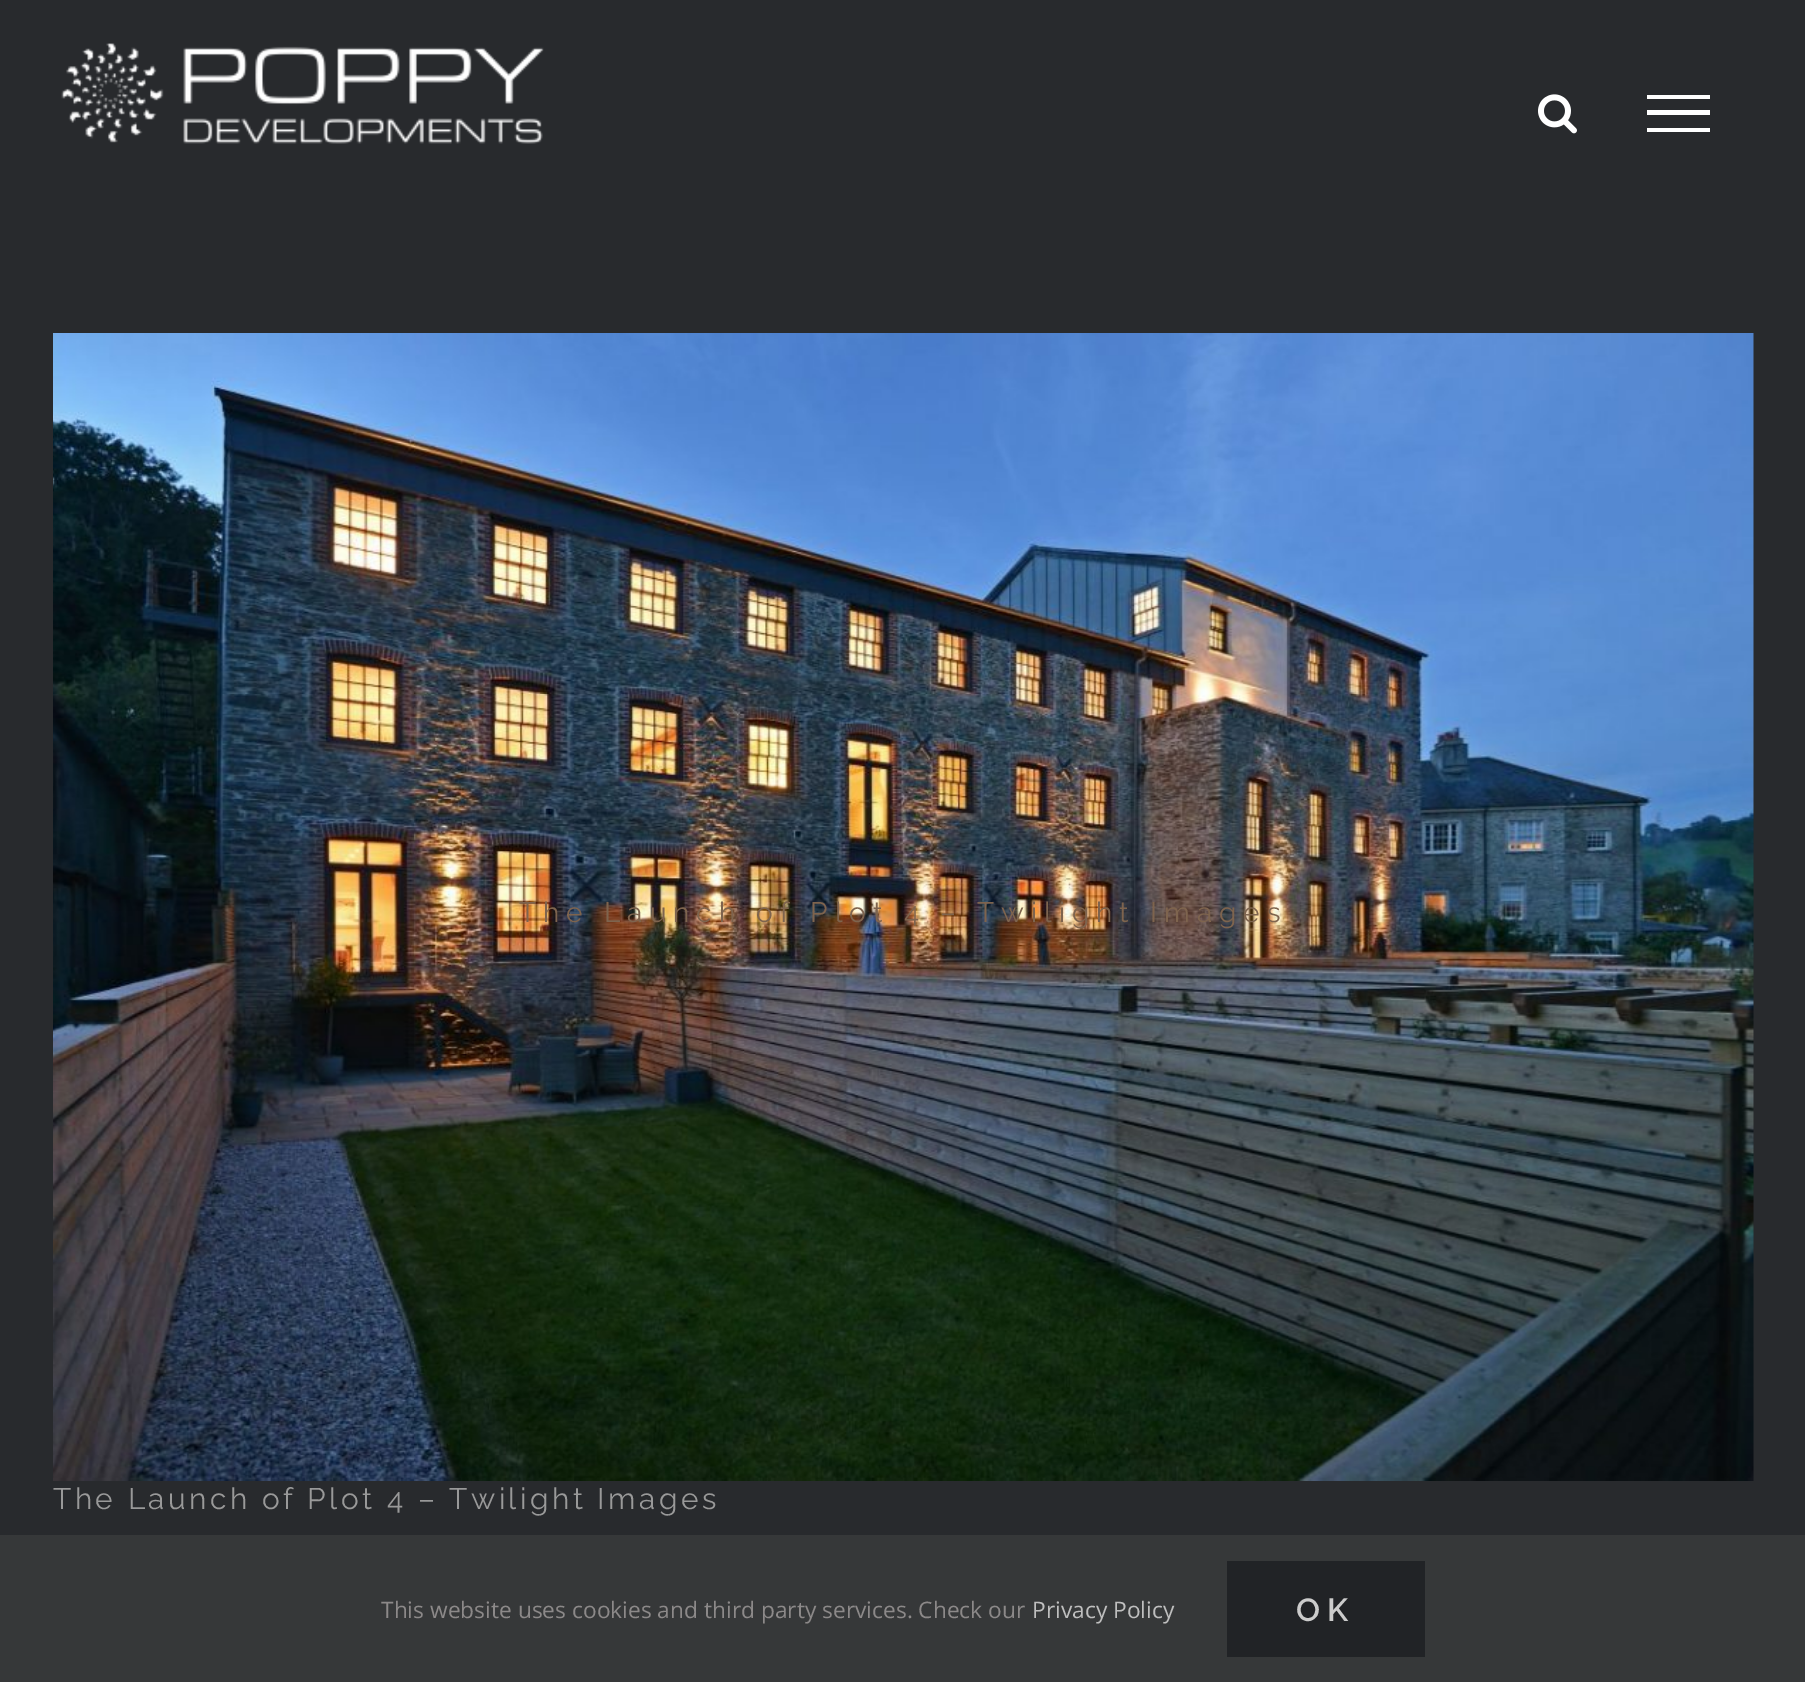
%!PS
<< /PageSize [1805 1682] >> setpagedevice
/mt/moveto load def
/co { dup -16 bitshift 255 div exch dup -8 bitshift 255 and 255 div exch 255 and 255 div setrgbcolor } def
/fn { [ exch dup neg 0 0 3 -1 roll 0 0 ] selectfont } def
/tx { co fn moveto show } def
/bx { co rectfill } def
/im { 5 dict begin { /h /w /y /x /name } { exch def } forall
  gsave x y translate w h scale
  w h 8 [w 0 0 h 0 0] name (r) file false 3 colorimage grestore end } def
0 1682 translate 1 -1 scale
4 setmiterlimit
0 0 1805 1682 16#282A2D bx
(media/1.raw) 61 43 483 101 im
(media/2.raw) 1538 94 39 40 im
1647 95 63 4 16#FFFFFF bx
1647 110 63 5 16#FFFFFF bx
1647 128 63 4 16#FFFFFF bx
(media/3.raw) 53 333 1701 1148 im
0 1535 1805 147 16#363839 bx
1227 1561 198 96 16#212326 bx
/Raleway-Regular 28 fn
16#7E644E co
519 922 mt 7 0 (The Launch of Plot 4 – Twilight Images) ashow
/Raleway-Regular 29.75 fn
16#999999 co
53 1509 mt 3.5 0 (The Launch of Plot 4 – Twilight Images) ashow
(This website uses cookies and third party services. Check our) 381 1618 /OpenSans-Regular 22.75 16#8C8989 tx
(Privacy Policy) 1032 1618 /OpenSans-Regular 22.75 16#BFBFBF tx
/Raleway-SemiBold 32 fn
16#CCCCCC co
1296 1621 mt 7 0 (OK) ashow
showpage
